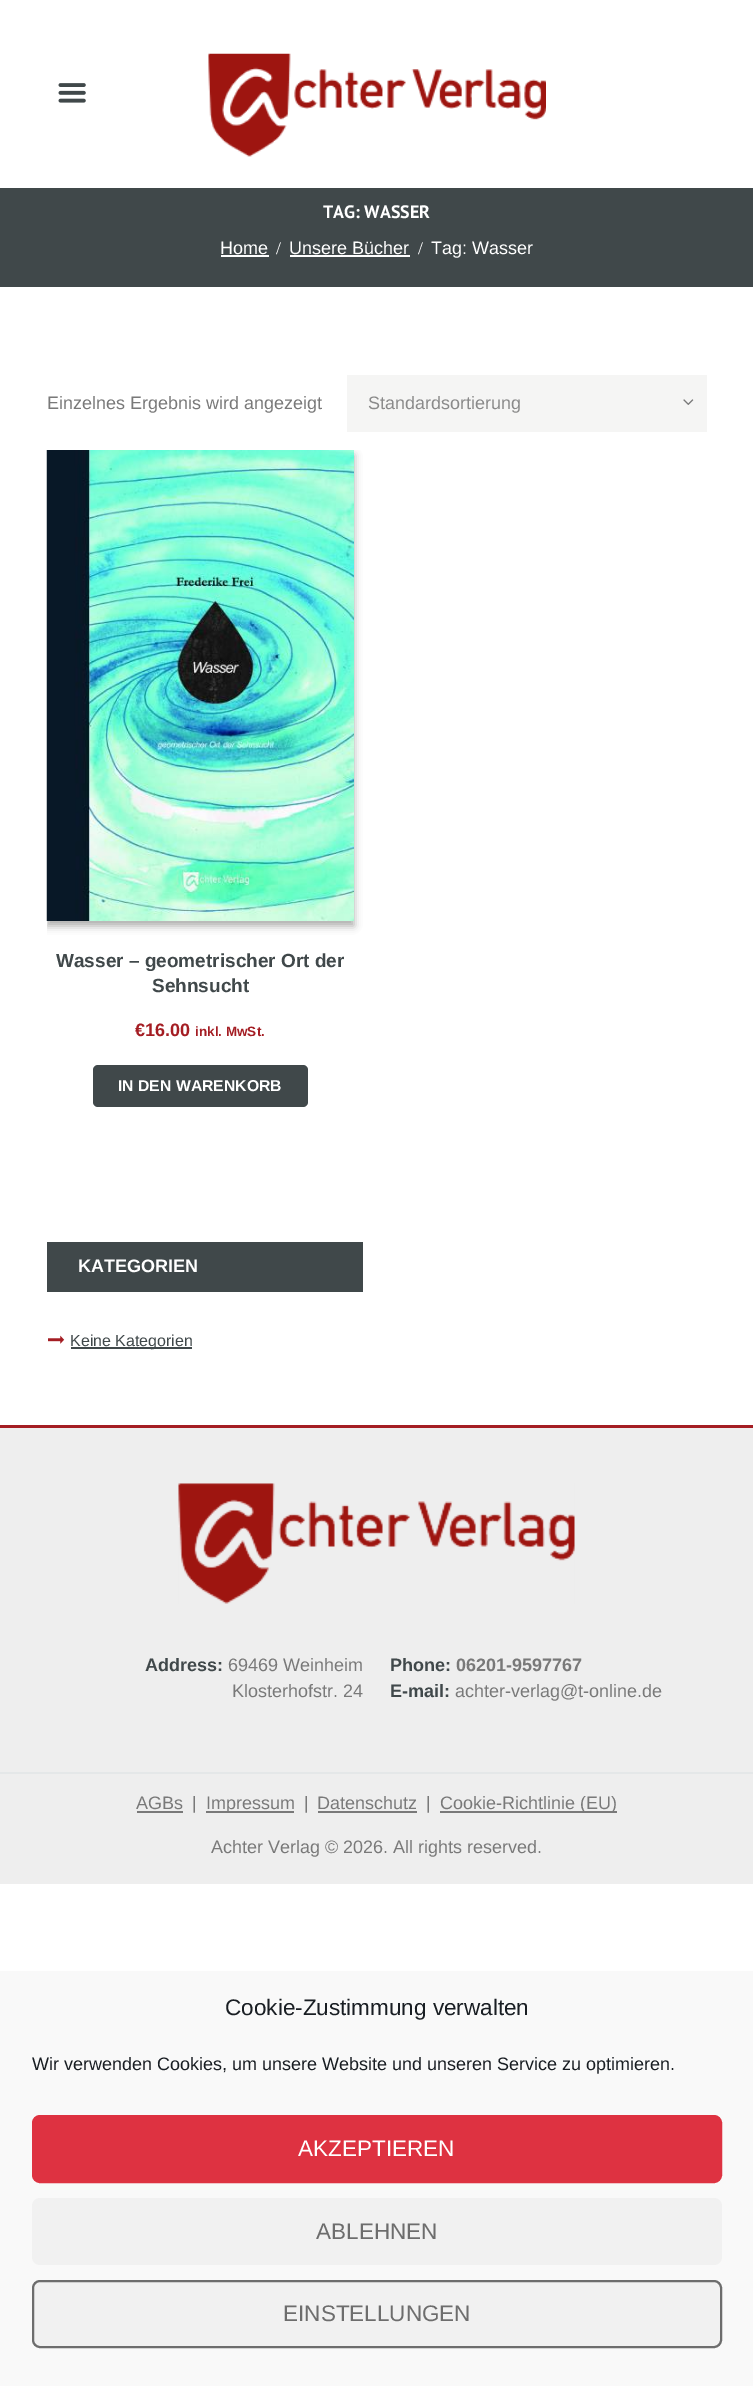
%!PS
<< /PageSize [753 2386] /PageUsesTransparency true >> setpagedevice
/fl/fill load def
/st/stroke load def
/gs/gsave load def
/gr/grestore load def
/lw/setlinewidth load def
/co { dup -16 bitshift 255 div exch dup -8 bitshift 255 and 255 div exch 255 and 255 div setrgbcolor } def
/fn { [ exch dup neg 0 0 3 -1 roll 0 0 ] selectfont } def
/tx { co fn moveto show } def
/bx { co rectfill } def
/al { dup .setfillconstantalpha .setstrokeconstantalpha } def
/rr { 5 dict begin { /r /h /w /y /x } { exch def } forall
  x r add y moveto x w add y 2 copy h add r arct x w add y h add x 1 index r arct
  x y h add x y r arct x y 2 copy exch w add exch r arct closepath end } def
/sh { 12 dict begin { /a /b /q /h /w /y /x } { exch def } forall gsave /was 0 def
  9 -2 -9 { dup b mul 4 div /e exch def 1 sub .425 mul 2.718 exch exp 1 add a .99 .min exch div /now exch def
    1 1 now sub 1 was sub div sub al /was now def
    w h .min e 2 mul add 0 gt { x e sub y e sub w e 2 mul add h e 2 mul add
      q e add b .6 mul add w h .min 2 div e add .min 0 .max rr fill } if } for grestore end } def
/im { 5 dict begin { /h /w /y /x /name } { exch def } forall
  gsave x y translate w h scale
  w h 8 [w 0 0 h 0 0] name (r) file false 3 colorimage grestore end } def
0 .pushpdf14devicefilter
0 2386 translate 1 -1 scale
4 setmiterlimit
0 0 753 2386 16#FFFFFF bx
(media/1.raw) 58 83 28 20 im
(media/2.raw) 208 53 338 104 im
0 188 753 99 16#40484A bx
221 255 48 2 16#FFFFFF bx
290 255 120 2 16#FFFFFF bx
347 375 360 57 16#F5F5F4 bx
(media/3.raw) 683 399 11 6 im
gs
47 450 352 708 rectclip
16#ADADAB co
47 455 307 471 0 4 1 sh
gr
(media/4.raw) 46 450 308 471 im
16#40484A co
93 1065 215 42 5 rr fl
47 1242 316 50 16#40484A bx
(media/5.raw) 48 1335 17 9 im
71 1347 121 2 16#40484A bx
0 1428 753 344 16#EEEEEE bx
0 1425 753 3 16#A41D23 bx
(media/6.raw) 178 1483 397 121 im
0 1774 753 110 16#EEEEEE bx
0 1772 753 2 16#E4E7E8 bx
137 1811 46 2 16#797979 bx
206 1811 88 2 16#797979 bx
318 1811 99 2 16#797979 bx
440 1811 177 2 16#797979 bx
0 1971 753 415 16#F9F9F9 bx
16#DE3241 co
33 2116 688 66 7 rr gs fl gr
2 lw
st
16#F1F1F1 co
32 2198 690 67 8 rr fl
33 2281 688 66 7 rr gs fl gr
16#6D6D6D co
st
(TAG: WASSER) 323 218 /PTSans-Bold 18 16#FFFFFF tx
(Home) 220 254 /LiberationSans-Regular 18 16#FFFFFF tx
(/) 276 254 /LiberationSerif-Regular 18 16#FFFFFF tx
(Unsere Bücher) 289 254 /LiberationSans-Regular 18 16#FFFFFF tx
(/) 418 254 /LiberationSerif-Regular 18 16#FFFFFF tx
(Tag: Wasser) 431 254 /LiberationSans-Regular 18 16#FFFFFF tx
(Einzelnes Ergebnis wird angezeigt) 47 409 /LiberationSans-Regular 18 16#797979 tx
(Standardsortierung) 368 409 /LiberationSans-Regular 18 16#8A8A8A tx
(Wasser – geometrischer Ort der) 56 967 /LiberationSans-Bold 19 16#40484A tx
(Sehnsucht) 152 992 /LiberationSans-Bold 19 16#40484A tx
(€16.00) 135 1036 /LiberationSans-Bold 18 16#A41D23 tx
(inkl. MwSt.) 195 1036 /LiberationSans-Bold 13.5 16#A41D23 tx
(IN DEN WARENKORB) 118 1091 /LiberationSans-Bold 15.75 16#FFFFFF tx
(KATEGORIEN) 78 1272 /LiberationSans-Bold 18 16#FFFFFF tx
(Keine Kategorien) 70 1346 /LiberationSans-Regular 16 16#40484A tx
(Address:) 145 1671 /LiberationSans-Bold 18 16#40484A tx
(69469 Weinheim) 228 1671 /LiberationSans-Regular 18 16#797979 tx
(Klosterhofstr. 24) 232 1697 /LiberationSans-Regular 18 16#797979 tx
(Phone:) 390 1671 /LiberationSans-Bold 18 16#40484A tx
(06201-9597767) 456 1671 /LiberationSans-Bold 18 16#797979 tx
(E-mail:) 390 1697 /LiberationSans-Bold 18 16#40484A tx
(achter-verlag@t-online.de) 455 1697 /LiberationSans-Regular 18 16#797979 tx
(AGBs) 136 1809 /LiberationSans-Regular 18 16#797979 tx
(|) 192 1809 /LiberationSans-Regular 18 16#797979 tx
(Impressum) 206 1809 /LiberationSans-Regular 18 16#797979 tx
(|) 304 1809 /LiberationSans-Regular 18 16#797979 tx
(Datenschutz) 317 1809 /LiberationSans-Regular 18 16#797979 tx
(|) 426 1809 /LiberationSans-Regular 18 16#797979 tx
(Cookie-Richtlinie \(EU\)) 440 1809 /LiberationSans-Regular 18 16#797979 tx
(Achter Verlag © 2026. All rights reserved.) 211 1853 /LiberationSans-Regular 18 16#797979 tx
(Cookie-Zustimmung verwalten) 225 2015 /LiberationSans-Regular 22.5 16#191E23 tx
(Wir verwenden Cookies, um unsere Website und unseren Service zu optimieren.) 32 2070 /LiberationSans-Regular 18 16#191E23 tx
(AKZEPTIEREN) 298 2156 /LiberationSans-Regular 22.5 16#FFFFFF tx
(ABLEHNEN) 316 2239 /LiberationSans-Regular 22.5 16#6D6D6D tx
(EINSTELLUNGEN) 283 2321 /LiberationSans-Regular 22.5 16#6D6D6D tx
.poppdf14devicefilter showpage
